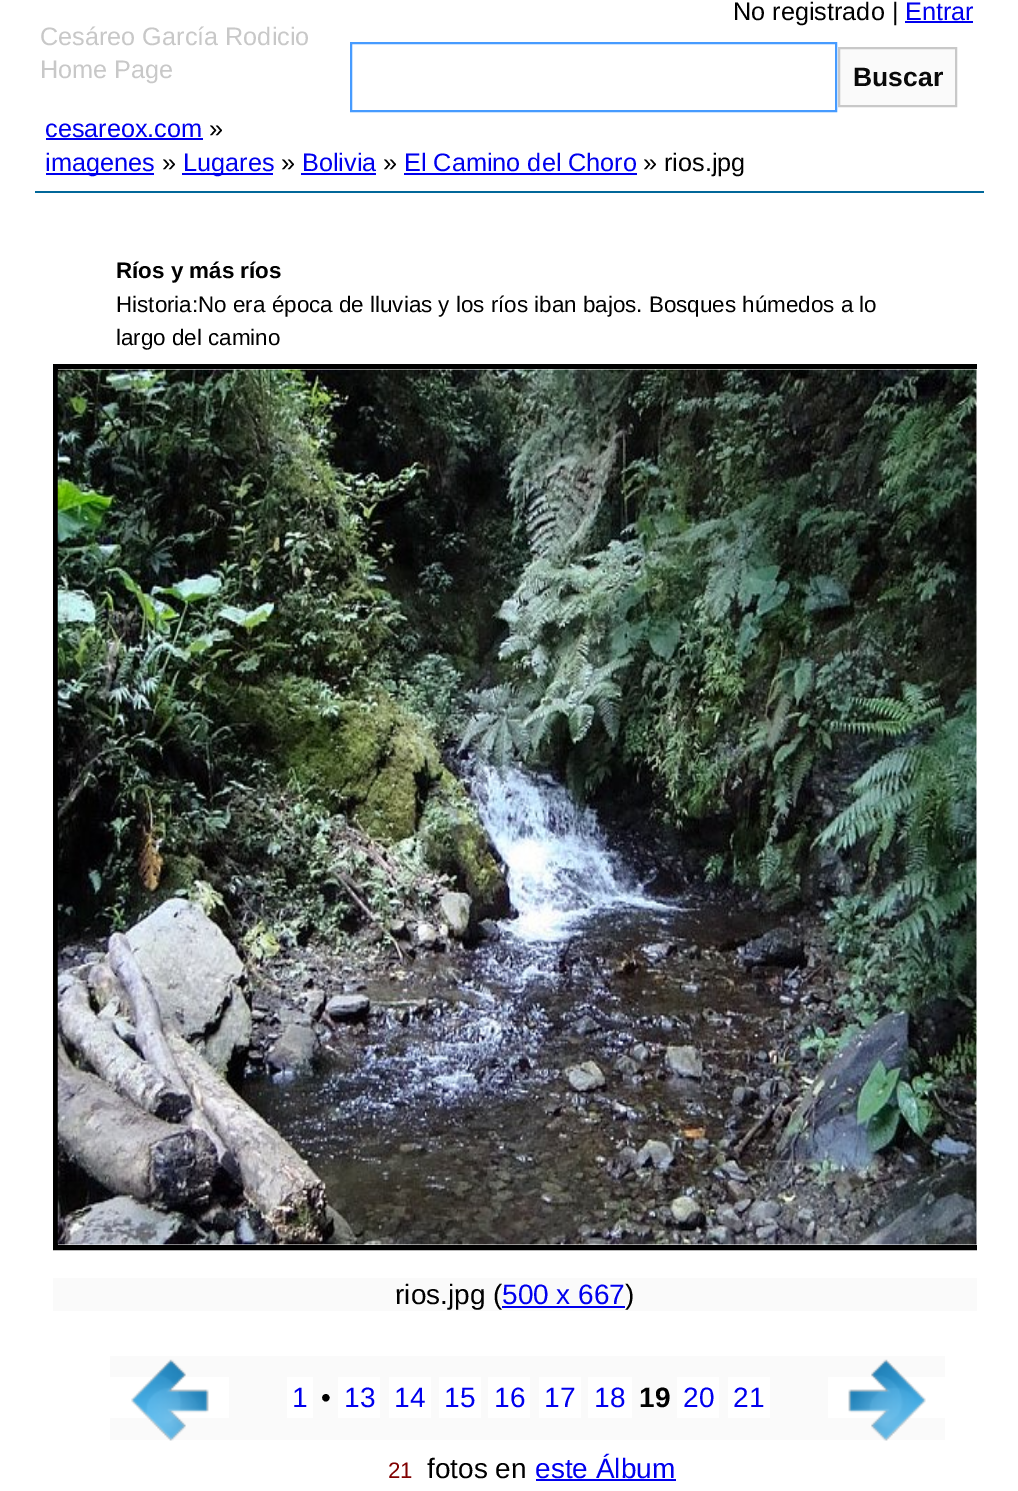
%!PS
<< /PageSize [1018 1491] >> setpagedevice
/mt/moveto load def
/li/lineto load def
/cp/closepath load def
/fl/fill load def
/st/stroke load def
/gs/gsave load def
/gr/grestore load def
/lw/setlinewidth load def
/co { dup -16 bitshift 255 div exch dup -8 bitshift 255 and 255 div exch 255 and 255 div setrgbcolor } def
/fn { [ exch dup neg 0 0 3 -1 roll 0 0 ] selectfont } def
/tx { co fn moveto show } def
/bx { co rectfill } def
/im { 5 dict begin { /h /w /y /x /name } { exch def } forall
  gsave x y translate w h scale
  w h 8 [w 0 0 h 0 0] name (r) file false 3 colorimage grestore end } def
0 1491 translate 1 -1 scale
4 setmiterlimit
0 0 1018 1491 16#FFFFFF bx
905 21 68 2 16#0000EE bx
16#469BFF co
2 lw
351 43 485 68 rectstroke
16#FAFAFA co
839 48 mt 956 48 li 956 106 li 839 106 li cp gs fl gr
16#C8C8C8 co
st
35 191 949 2 16#016799 bx
46 138 157 2 16#0000EE bx
46 173 108 2 16#0000EE bx
182 173 91 2 16#0000EE bx
301 173 75 2 16#0000EE bx
404 173 233 2 16#0000EE bx
gs
47 359 930 987 rectclip
16#000000 co
5 lw
55.5 366.5 929 881 rectstroke
gr
(media/1.raw) 57 369 920 876 im
53 1278 924 33 16#FAFAFA bx
110 1356 835 84 16#FAFAFA bx
110 1377 119 41 16#FFFFFF bx
(media/2.raw) 131 1359 78 82 im
287 1377 26 41 16#FFFFFF bx
338 1377 42 41 16#FFFFFF bx
389 1377 42 41 16#FFFFFF bx
439 1377 42 41 16#FFFFFF bx
488 1377 42 41 16#FFFFFF bx
539 1377 42 41 16#FFFFFF bx
588 1377 44 41 16#FFFFFF bx
677 1377 42 41 16#FFFFFF bx
728 1377 42 41 16#FFFFFF bx
828 1377 117 41 16#FFFFFF bx
(media/3.raw) 848 1359 78 82 im
536 1479 140 2 16#0000EE bx
(Cesáreo García Rodicio) 40 45 /LiberationSans-Regular 25.25 16#C8C8C8 tx
(Home Page) 40 78 /LiberationSans-Regular 25.25 16#C8C8C8 tx
(No registrado |) 733 20 /LiberationSans-Regular 25.25 16#000000 tx
(Entrar) 905 20 /LiberationSans-Regular 25.25 16#0000EE tx
(Buscar) 853 86 /LiberationSans-Bold 26.5 16#0A0A0A tx
(cesareox.com) 45 137 /LiberationSans-Regular 25.25 16#0000EE tx
(») 209 137 /LiberationSans-Regular 25.25 16#000000 tx
(imagenes) 45 171 /LiberationSans-Regular 25.25 16#0000EE tx
(») 162 171 /LiberationSans-Regular 25.25 16#000000 tx
(Lugares) 183 171 /LiberationSans-Regular 25.25 16#0000EE tx
(») 281 171 /LiberationSans-Regular 25.25 16#000000 tx
(Bolivia) 302 171 /LiberationSans-Regular 25.25 16#0000EE tx
(») 383 171 /LiberationSans-Regular 25.25 16#000000 tx
(El Camino del Choro) 404 171 /LiberationSans-Regular 25.25 16#0000EE tx
(» rios.jpg) 643 171 /LiberationSans-Regular 25.25 16#000000 tx
(Ríos y más ríos) 116 278 /LiberationSans-Bold 22.4 16#000000 tx
(Historia:No era época de lluvias y los ríos iban bajos. Bosques húmedos a lo) 116 312 /LiberationSans-Regular 22.4 16#000000 tx
(largo del camino) 116 345 /LiberationSans-Regular 22.4 16#000000 tx
(rios.jpg \() 395 1304 /LiberationSans-Regular 28 16#000000 tx
(500 x 667) 502 1304 /LiberationSans-Regular 28 16#0000EE tx
502 1306 123 2 16#0000EE bx
(\)) 625 1304 /LiberationSans-Regular 28 16#000000 tx
(1) 292 1407 /LiberationSans-Regular 28 16#0000EE tx
(•) 321 1407 /LiberationSans-Regular 28 16#000000 tx
(13) 344 1407 /LiberationSans-Regular 28 16#0000EE tx
(14) 394 1407 /LiberationSans-Regular 28 16#0000EE tx
(15) 444 1407 /LiberationSans-Regular 28 16#0000EE tx
(16) 494 1407 /LiberationSans-Regular 28 16#0000EE tx
(17) 544 1407 /LiberationSans-Regular 28 16#0000EE tx
(18) 594 1407 /LiberationSans-Regular 28 16#0000EE tx
(19) 639 1407 /LiberationSans-Bold 28 16#000000 tx
(20) 683 1407 /LiberationSans-Regular 28 16#0000EE tx
(21) 733 1407 /LiberationSans-Regular 28 16#0000EE tx
(21) 388 1478 /LiberationSans-Regular 22.4 16#800000 tx
(fotos en) 427 1478 /LiberationSans-Regular 28 16#000000 tx
(este Álbum) 535 1478 /LiberationSans-Regular 28 16#0000EE tx
showpage
